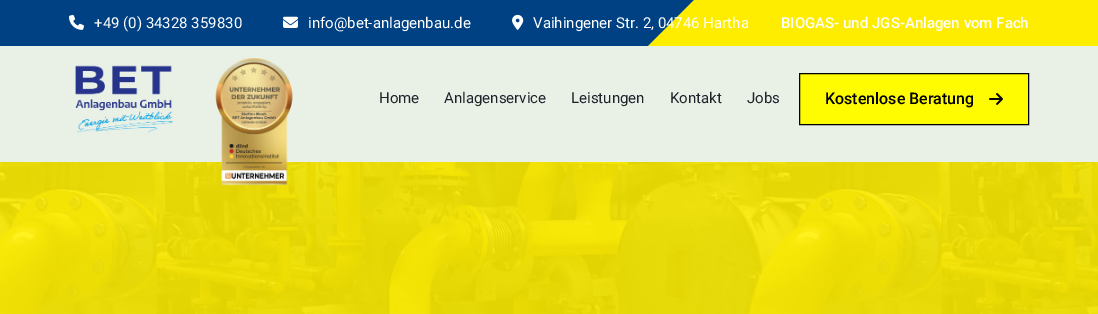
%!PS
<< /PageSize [1098 314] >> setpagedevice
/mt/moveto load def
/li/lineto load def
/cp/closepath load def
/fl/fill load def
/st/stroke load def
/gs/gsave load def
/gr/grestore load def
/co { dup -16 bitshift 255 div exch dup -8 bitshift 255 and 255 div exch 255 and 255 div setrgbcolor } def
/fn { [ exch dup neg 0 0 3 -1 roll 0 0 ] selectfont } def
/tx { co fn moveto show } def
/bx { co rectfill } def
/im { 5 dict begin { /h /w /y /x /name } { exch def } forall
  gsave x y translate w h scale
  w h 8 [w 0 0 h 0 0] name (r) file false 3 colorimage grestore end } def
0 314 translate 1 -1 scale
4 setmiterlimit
0 0 1098 314 16#E9F1E7 bx
0 0 694 46 16#004184 bx
16#FFED00 co
1098 46 mt 648 46 li 1098 -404 li cp fl
(media/1.raw) 69 14 15 16 im
(media/2.raw) 283 16 15 12 im
(media/3.raw) 512 14 12 16 im
(media/4.raw) 75 65 99 68 im
(media/7.raw) 0 162 1098 152 im
(media/5.raw) 215 58 78 128 im
16#FFFB00 co
799.5 73.5 mt 1028.5 73.5 li 1028.5 124.5 li 799.5 124.5 li cp gs fl gr
16#000000 co
st
(media/6.raw) 989 93 14 12 im
(+49 \(0\) 34328 359830) 94 28 /Roboto-Regular 15 16#FFFFFF tx
(info@bet-anlagenbau.de) 308 28 /Roboto-Regular 15 16#FFFFFF tx
(Vaihingener Str. 2, 04746 Hartha) 533 28 /Roboto-Regular 15 16#FFFFFF tx
(BIOGAS- und JGS-Anlagen vom Fach) 781 28 /Roboto-Medium 15 16#FFFFFF tx
(Home) 379 103 /Roboto-Regular 15 16#1F242C tx
(Anlagenservice) 444 103 /Roboto-Regular 15 16#1F242C tx
(Leistungen) 571 103 /Roboto-Regular 15 16#1F242C tx
(Kontakt) 670 103 /Roboto-Regular 15 16#1F242C tx
(Jobs) 747 103 /Roboto-Regular 15 16#1F242C tx
(Kostenlose Beratung) 825 104 /Roboto-Medium 16 16#000000 tx
showpage
